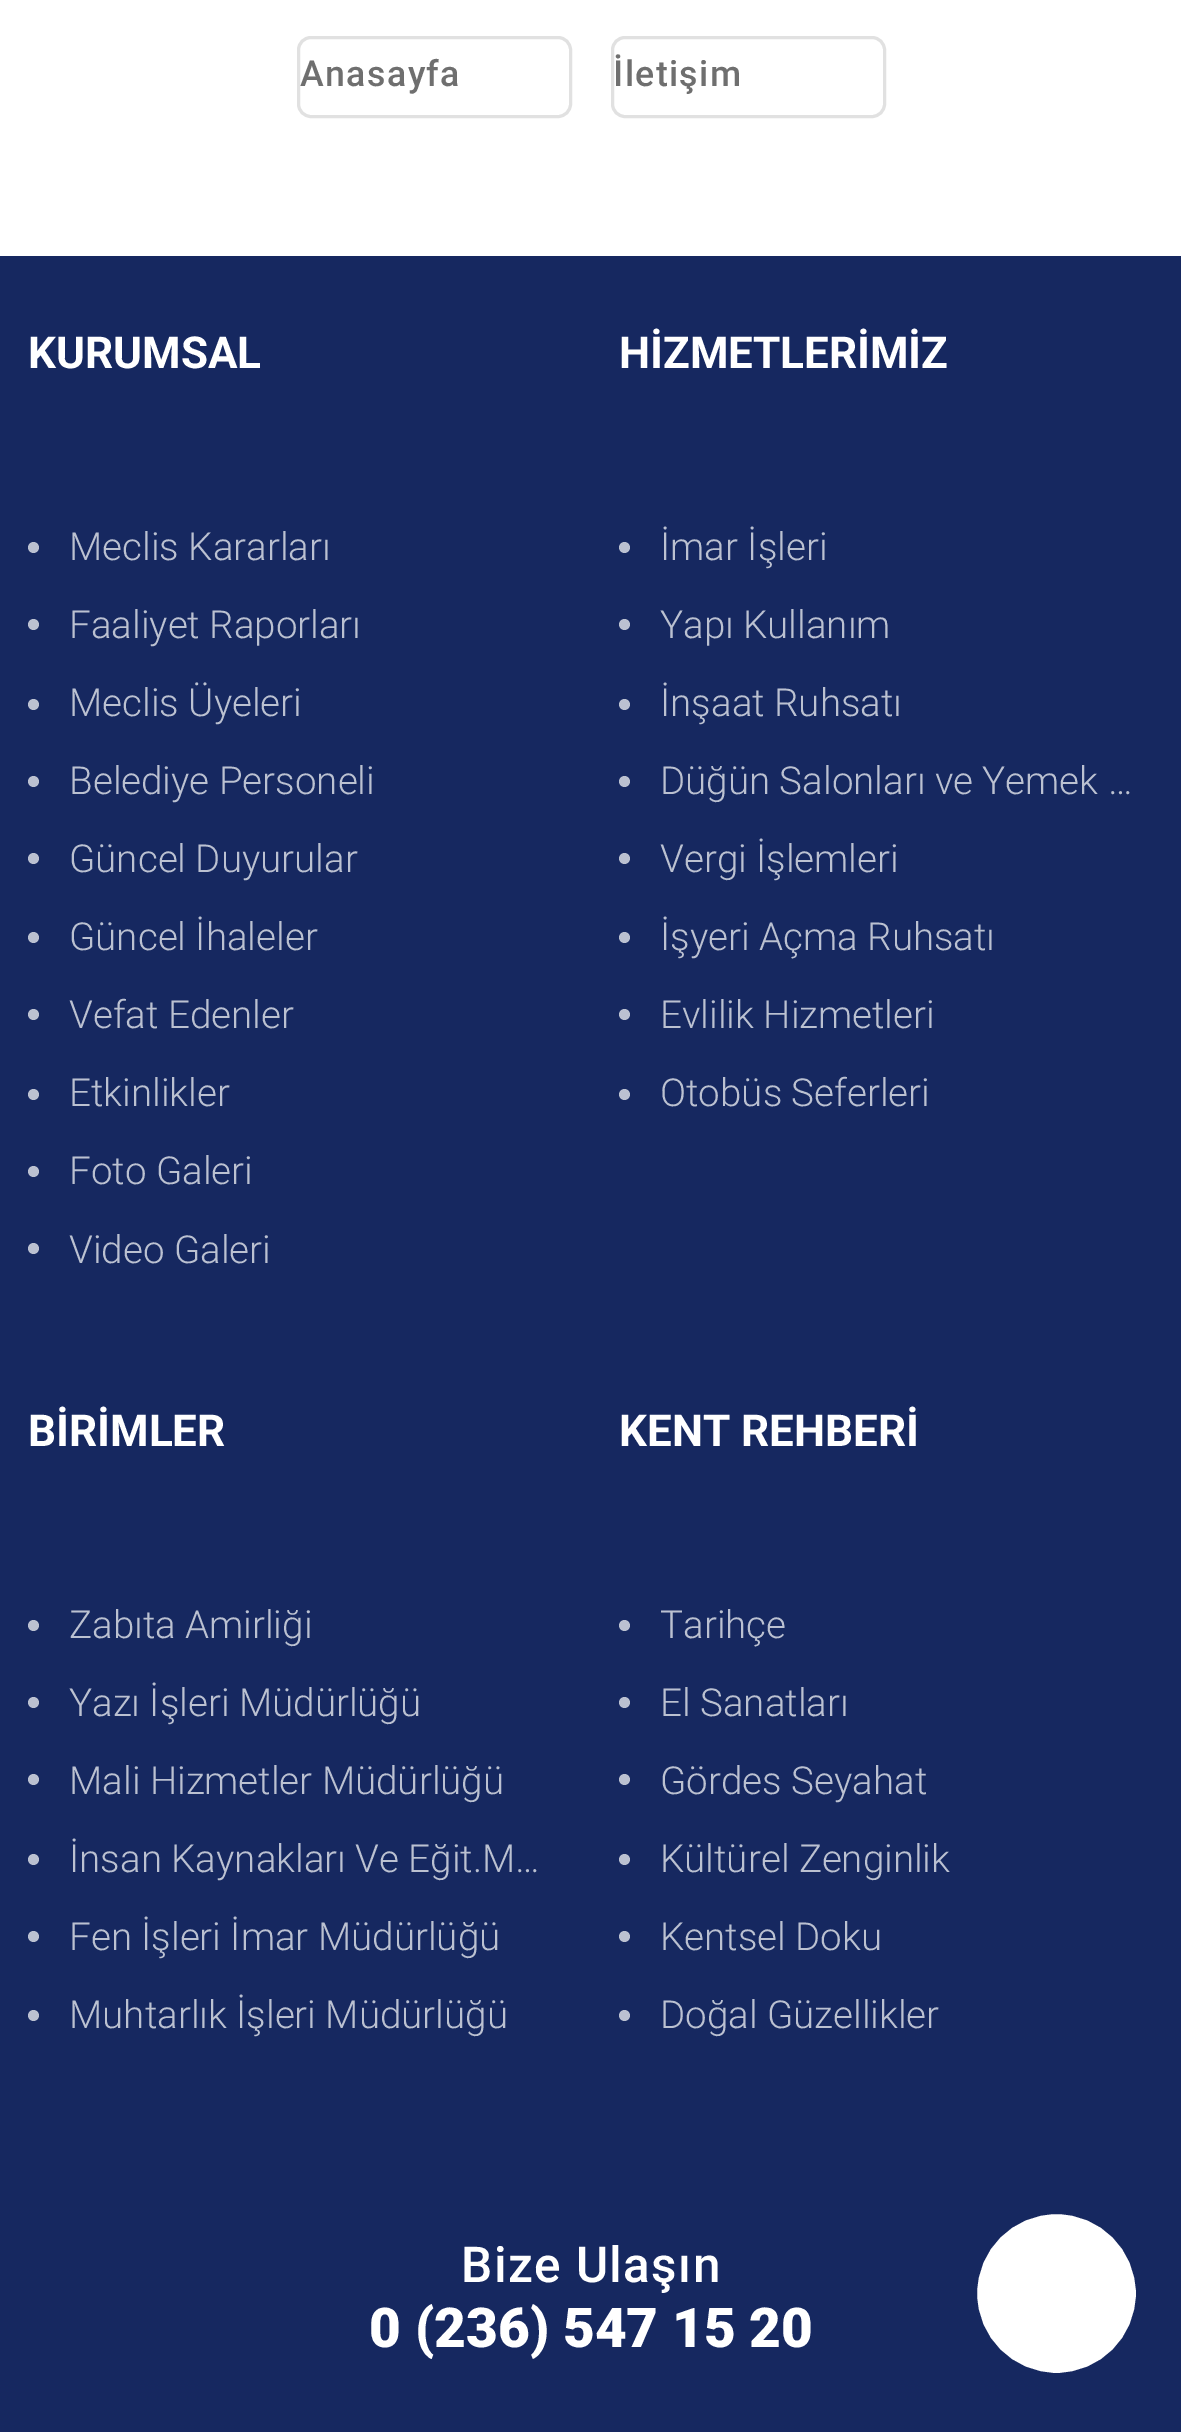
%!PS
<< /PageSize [1181 2432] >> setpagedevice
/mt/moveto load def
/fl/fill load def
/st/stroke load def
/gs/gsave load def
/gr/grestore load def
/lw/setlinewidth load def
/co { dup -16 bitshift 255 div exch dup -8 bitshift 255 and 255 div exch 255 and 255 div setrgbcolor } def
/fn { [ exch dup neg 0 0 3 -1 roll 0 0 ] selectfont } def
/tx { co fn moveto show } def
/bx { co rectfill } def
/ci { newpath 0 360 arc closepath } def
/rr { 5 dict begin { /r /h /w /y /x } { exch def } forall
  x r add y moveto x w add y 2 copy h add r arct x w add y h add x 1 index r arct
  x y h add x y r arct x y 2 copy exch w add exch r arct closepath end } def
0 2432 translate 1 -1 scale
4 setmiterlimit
0 0 1181 2432 16#FFFFFF bx
16#E1E1E1 co
3 lw
298.5 37.5 272 79 12.5 rr st
612.5 37.5 272 79 12.5 rr st
0 256 1181 2176 16#162860 bx
16#BBC1D1 co
33.5 547.5 5.5 ci fl
33.5 624.5 5.5 ci fl
33.5 704.5 5.5 ci fl
33.5 781.5 5.5 ci fl
33.5 858.5 5.5 ci fl
33.5 937.5 5.5 ci fl
33.5 1014.5 5.5 ci fl
33.5 1094.5 5.5 ci fl
33.5 1171.5 5.5 ci fl
33.5 1248.5 5.5 ci fl
624.5 547.5 5.5 ci fl
624.5 624.5 5.5 ci fl
624.5 704.5 5.5 ci fl
624.5 781.5 5.5 ci fl
624.5 858.5 5.5 ci fl
624.5 937.5 5.5 ci fl
624.5 1014.5 5.5 ci fl
624.5 1094.5 5.5 ci fl
33.5 1625.5 5.5 ci fl
33.5 1702.5 5.5 ci fl
33.5 1779.5 5.5 ci fl
33.5 1859.5 5.5 ci fl
33.5 1936.5 5.5 ci fl
33.5 2015.5 5.5 ci fl
624.5 1625.5 5.5 ci fl
624.5 1702.5 5.5 ci fl
624.5 1779.5 5.5 ci fl
624.5 1859.5 5.5 ci fl
624.5 1936.5 5.5 ci fl
624.5 2015.5 5.5 ci fl
16#FFFFFF co
1056.5 2293.5 81 ci gs fl gr
16#162860 co
st
/Roboto-Medium 35.75 fn
16#6F6F6F co
300 86 mt 1.4 0 (Anasayfa) ashow
613 86 mt 1.4 0 (İletişim) ashow
(KURUMSAL) 28 368 /Roboto-Bold 44 16#FFFFFF tx
(Meclis Kararları) 69 560 /Roboto-Light 38.5 16#BBC1D1 tx
(Faaliyet Raporları) 69 638 /Roboto-Light 38.5 16#BBC1D1 tx
(Meclis Üyeleri) 69 716 /Roboto-Light 38.5 16#BBC1D1 tx
(Belediye Personeli) 69 794 /Roboto-Light 38.5 16#BBC1D1 tx
(Güncel Duyurular) 69 872 /Roboto-Light 38.5 16#BBC1D1 tx
(Güncel İhaleler) 69 950 /Roboto-Light 38.5 16#BBC1D1 tx
(Vefat Edenler) 69 1028 /Roboto-Light 38.5 16#BBC1D1 tx
(Etkinlikler) 69 1106 /Roboto-Light 38.5 16#BBC1D1 tx
(Foto Galeri) 69 1184 /Roboto-Light 38.5 16#BBC1D1 tx
(Video Galeri) 69 1263 /Roboto-Light 38.5 16#BBC1D1 tx
(HİZMETLERİMİZ) 619 368 /Roboto-Bold 44 16#FFFFFF tx
(İmar İşleri) 660 560 /Roboto-Light 38.5 16#BBC1D1 tx
(Yapı Kullanım) 660 638 /Roboto-Light 38.5 16#BBC1D1 tx
(İnşaat Ruhsatı) 660 716 /Roboto-Light 38.5 16#BBC1D1 tx
(Düğün Salonları ve Yemek …) 660 794 /Roboto-Light 38.5 16#BBC1D1 tx
(Vergi İşlemleri) 660 872 /Roboto-Light 38.5 16#BBC1D1 tx
(İşyeri Açma Ruhsatı) 660 950 /Roboto-Light 38.5 16#BBC1D1 tx
(Evlilik Hizmetleri) 660 1028 /Roboto-Light 38.5 16#BBC1D1 tx
(Otobüs Seferleri) 660 1106 /Roboto-Light 38.5 16#BBC1D1 tx
(BİRİMLER) 28 1446 /Roboto-Bold 44 16#FFFFFF tx
(Zabıta Amirliği) 69 1638 /Roboto-Light 38.5 16#BBC1D1 tx
(Yazı İşleri Müdürlüğü) 69 1716 /Roboto-Light 38.5 16#BBC1D1 tx
(Mali Hizmetler Müdürlüğü) 69 1794 /Roboto-Light 38.5 16#BBC1D1 tx
(İnsan Kaynakları Ve Eğit.M…) 69 1872 /Roboto-Light 38.5 16#BBC1D1 tx
(Fen İşleri İmar Müdürlüğü) 69 1950 /Roboto-Light 38.5 16#BBC1D1 tx
(Muhtarlık İşleri Müdürlüğü) 69 2028 /Roboto-Light 38.5 16#BBC1D1 tx
(KENT REHBERİ) 619 1446 /Roboto-Bold 44 16#FFFFFF tx
(Tarihçe) 660 1638 /Roboto-Light 38.5 16#BBC1D1 tx
(El Sanatları) 660 1716 /Roboto-Light 38.5 16#BBC1D1 tx
(Gördes Seyahat) 660 1794 /Roboto-Light 38.5 16#BBC1D1 tx
(Kültürel Zenginlik) 660 1872 /Roboto-Light 38.5 16#BBC1D1 tx
(Kentsel Doku) 660 1950 /Roboto-Light 38.5 16#BBC1D1 tx
(Doğal Güzellikler) 660 2028 /Roboto-Light 38.5 16#BBC1D1 tx
/Roboto-Medium 49.5 fn
16#FFFFFF co
461 2282 mt 1.4 0 (Bize Ulaşın) ashow
(0 \(236\) 547 15 20) 369 2347 /Roboto-Black 55 16#FFFFFF tx
showpage
